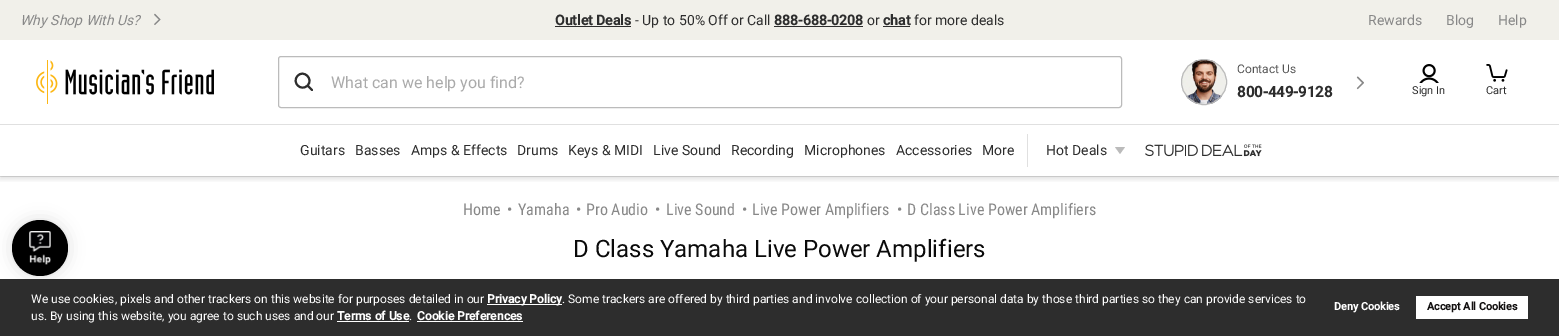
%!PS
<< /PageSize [1559 336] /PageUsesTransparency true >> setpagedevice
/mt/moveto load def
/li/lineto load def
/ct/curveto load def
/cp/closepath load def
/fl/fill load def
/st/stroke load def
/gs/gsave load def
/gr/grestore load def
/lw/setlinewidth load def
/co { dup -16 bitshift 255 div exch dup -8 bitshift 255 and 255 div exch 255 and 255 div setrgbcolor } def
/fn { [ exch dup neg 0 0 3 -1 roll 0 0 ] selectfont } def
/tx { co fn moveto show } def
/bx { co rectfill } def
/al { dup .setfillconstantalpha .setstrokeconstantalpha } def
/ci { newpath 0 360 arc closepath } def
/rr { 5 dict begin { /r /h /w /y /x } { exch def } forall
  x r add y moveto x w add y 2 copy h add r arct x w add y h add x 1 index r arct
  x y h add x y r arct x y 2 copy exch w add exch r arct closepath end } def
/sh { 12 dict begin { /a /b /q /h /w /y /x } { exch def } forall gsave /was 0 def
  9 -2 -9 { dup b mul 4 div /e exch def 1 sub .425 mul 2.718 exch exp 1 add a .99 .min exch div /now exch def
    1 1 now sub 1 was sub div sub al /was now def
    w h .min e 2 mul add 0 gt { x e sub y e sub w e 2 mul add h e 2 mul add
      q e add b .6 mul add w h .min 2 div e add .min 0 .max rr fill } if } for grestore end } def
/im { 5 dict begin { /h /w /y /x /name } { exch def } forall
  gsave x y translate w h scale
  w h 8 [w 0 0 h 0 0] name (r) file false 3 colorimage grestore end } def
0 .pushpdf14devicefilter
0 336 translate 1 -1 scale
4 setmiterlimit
0 0 1559 336 16#FFFFFF bx
0 176 1559 1 16#E0E0E0 bx
0 0 1559 40 16#F1F0EA bx
(media/1.raw) 154 13 7 12 im
555 26 76 1 16#2D2D2D bx
774 26 89 1 16#2D2D2D bx
883 26 27 1 16#2D2D2D bx
(media/2.raw) 36 60 178 44 im
16#BBBBBB co
278.5 56.5 843 51 2.5 rr st
16#2D2D2D co
2 lw
1 setlinecap
1 setlinejoin
307.5 85.5 mt 301 92 291.5 82.5 297.5 76 ct 303.5 69 314 79 307.5 85.5 ct 312 90 li cp st
(media/3.raw) 1181 60 46 44 im
16#BBBBBB co
1 lw
0 setlinecap
0 setlinejoin
1204 82 22.5 ci st
(media/4.raw) 1356 76 8 14 im
(media/5.raw) 1419 64 20 19 im
(media/6.raw) 1486 64 22 18 im
gs
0 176 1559 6 rectclip
16#000000 co
0 127 1559 52 0 3 .12 sh
gr
0 124 1559 1 16#E0E0E0 bx
1027 134 1 33 16#E0E0E0 bx
16#BBBBBB co
1115 147 mt 1125 147 li 1120 154 li cp fl
(media/7.raw) 1145 144 117 13 im
16#000000 co
12 220 56 56 28 8 .13 sh
40 248 28 ci fl
(media/8.raw) 29 231 22 34 im
0 279 1559 57 16#2D2D2D bx
487 304 75 1 16#FFFFFF bx
337 321 72 1 16#FFFFFF bx
417 321 106 1 16#FFFFFF bx
1416 296 112 23 16#FFFFFF bx
(Why Shop With Us?) 20 25 /Roboto-Italic 14 16#888888 tx
(Outlet Deals) 555 25 /Roboto-Bold 14 16#2D2D2D tx
(- Up to 50% Off or Call) 635 25 /Roboto-Regular 14 16#2D2D2D tx
(888-688-0208) 774 25 /Roboto-Bold 14 16#2D2D2D tx
(or) 867 25 /Roboto-Regular 14 16#2D2D2D tx
(chat) 883 25 /Roboto-Bold 14 16#2D2D2D tx
(for more deals) 914 25 /Roboto-Regular 14 16#2D2D2D tx
(Rewards) 1368 25 /Roboto-Regular 14 16#888888 tx
(Blog) 1446 25 /Roboto-Regular 14 16#888888 tx
(Help) 1498 25 /Roboto-Regular 14 16#888888 tx
(What can we help you find?) 331 88 /Roboto-Regular 16 16#AAAAAA tx
(Contact Us) 1237 73 /Roboto-Regular 12 16#555555 tx
(800-449-9128) 1237 97 /Roboto-Bold 15 16#2D2D2D tx
(Sign In) 1412 94 /Roboto-Regular 11 16#2D2D2D tx
(Cart) 1486 94 /Roboto-Regular 11 16#2D2D2D tx
(Guitars) 300 155 /Roboto-Regular 14 16#2D2D2D tx
(Basses) 355 155 /Roboto-Regular 14 16#2D2D2D tx
(Amps & Effects) 411 155 /Roboto-Regular 14 16#2D2D2D tx
(Drums) 517 155 /Roboto-Regular 14 16#2D2D2D tx
(Keys & MIDI) 568 155 /Roboto-Regular 14 16#2D2D2D tx
(Live Sound) 653 155 /Roboto-Regular 14 16#2D2D2D tx
(Recording) 731 155 /Roboto-Regular 14 16#2D2D2D tx
(Microphones) 804 155 /Roboto-Regular 14 16#2D2D2D tx
(Accessories) 896 155 /Roboto-Regular 14 16#2D2D2D tx
(More) 982 155 /Roboto-Regular 14 16#2D2D2D tx
(Hot Deals) 1046 155 /Roboto-Regular 14 16#2D2D2D tx
(Home) 463 215 /RobotoCondensed-Regular 16 16#888888 tx
(•) 507 215 /RobotoCondensed-Regular 16 16#888888 tx
(Yamaha) 518 215 /RobotoCondensed-Regular 16 16#888888 tx
(•) 576 215 /RobotoCondensed-Regular 16 16#888888 tx
(Pro Audio) 586 215 /RobotoCondensed-Regular 16 16#888888 tx
(•) 655 215 /RobotoCondensed-Regular 16 16#888888 tx
(Live Sound) 666 215 /RobotoCondensed-Regular 16 16#888888 tx
(•) 742 215 /RobotoCondensed-Regular 16 16#888888 tx
(Live Power Amplifiers) 752 215 /RobotoCondensed-Regular 16 16#888888 tx
(•) 897 215 /RobotoCondensed-Regular 16 16#888888 tx
(D Class Live Power Amplifiers) 907 215 /RobotoCondensed-Regular 16 16#888888 tx
(D Class Yamaha Live Power Amplifiers) 573 257 /Roboto-Regular 24 16#0A0A0A tx
(We use cookies, pixels and other trackers on this website for purposes detailed in our) 31 303 /Roboto-Regular 12 16#FFFFFF tx
(Privacy Policy) 487 303 /Roboto-Bold 12 16#FFFFFF tx
(. Some trackers are offered by third parties and involve collection of your personal data by those third parties so they can provide services to) 562 303 /Roboto-Regular 12 16#FFFFFF tx
(us. By using this website, you agree to such uses and our) 31 320 /Roboto-Regular 12 16#FFFFFF tx
(Terms of Use) 337 320 /Roboto-Bold 12 16#FFFFFF tx
(.) 409 320 /Roboto-Regular 12 16#FFFFFF tx
(Cookie Preferences) 417 320 /Roboto-Bold 12 16#FFFFFF tx
(Deny Cookies) 1334 310 /Roboto-Bold 10.75 16#FFFFFF tx
(Accept All Cookies) 1427 310 /Roboto-Bold 10.75 16#121010 tx
.poppdf14devicefilter showpage
